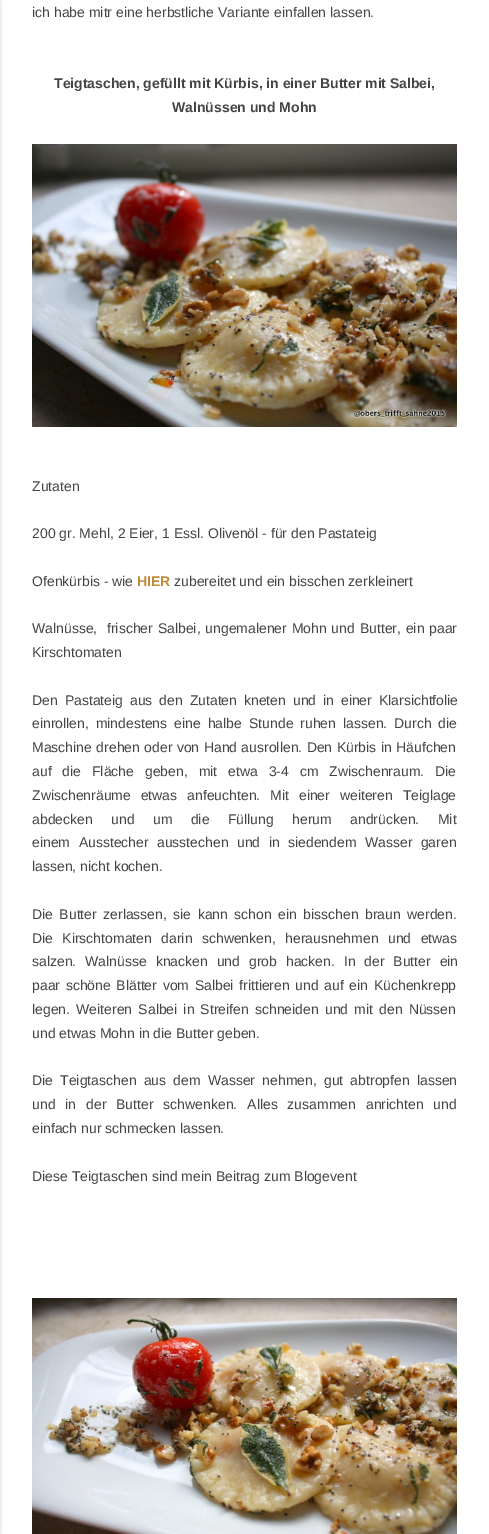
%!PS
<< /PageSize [489 1534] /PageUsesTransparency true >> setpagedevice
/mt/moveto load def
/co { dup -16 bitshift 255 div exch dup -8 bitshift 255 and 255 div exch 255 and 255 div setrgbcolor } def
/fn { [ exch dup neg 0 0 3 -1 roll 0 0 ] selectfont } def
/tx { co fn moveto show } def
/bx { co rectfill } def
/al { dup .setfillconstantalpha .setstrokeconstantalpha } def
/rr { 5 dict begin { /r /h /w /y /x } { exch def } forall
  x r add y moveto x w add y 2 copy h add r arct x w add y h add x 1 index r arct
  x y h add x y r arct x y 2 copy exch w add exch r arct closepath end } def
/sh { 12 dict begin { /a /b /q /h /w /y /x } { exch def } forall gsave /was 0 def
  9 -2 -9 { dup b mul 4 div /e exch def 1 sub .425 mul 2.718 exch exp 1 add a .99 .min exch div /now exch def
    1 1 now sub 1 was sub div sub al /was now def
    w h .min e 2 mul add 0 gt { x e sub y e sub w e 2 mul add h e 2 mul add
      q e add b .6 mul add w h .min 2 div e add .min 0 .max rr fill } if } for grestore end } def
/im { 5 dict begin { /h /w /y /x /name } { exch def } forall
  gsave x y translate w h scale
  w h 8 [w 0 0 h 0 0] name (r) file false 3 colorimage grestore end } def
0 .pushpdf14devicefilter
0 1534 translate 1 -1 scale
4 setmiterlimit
0 0 489 1534 16#FFFFFF bx
16#000000 co
-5 0 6 1534 0 1.5 .1 sh
(media/1.raw) 32 144 425 283 im
(media/2.raw) 32 1298 425 236 im
(ich habe mitr eine herbstliche Variante einfallen lassen.) 32 17 /LiberationSans-Regular 14 16#444444 tx
(Teigtaschen, gefüllt mit Kürbis, in einer Butter mit Salbei,) 54 88 /LiberationSans-Bold 14 16#444444 tx
(Walnüssen und Mohn) 172 112 /LiberationSans-Bold 14 16#444444 tx
(Zutaten) 32 491 /LiberationSans-Regular 14 16#444444 tx
(200 gr. Mehl, 2 Eier, 1 Essl. Olivenöl - für den Pastateig) 32 538 /LiberationSans-Regular 14 16#444444 tx
(Ofenkürbis - wie) 32 586 /LiberationSans-Regular 14 16#444444 tx
(HIER) 137 586 /LiberationSans-Bold 14 16#BF8B38 tx
(zubereitet und ein bisschen zerkleinert) 174 586 /LiberationSans-Regular 14 16#444444 tx
32 633 mt .9 0 32 (Walnüsse,  frischer Salbei, ungemalener Mohn und Butter, ein paar) widthshow
(Kirschtomaten) 32 657 /LiberationSans-Regular 14 16#444444 tx
32 705 mt 3 0 32 (Den Pastateig aus den Zutaten kneten und in einer Klarsichtfolie) widthshow
32 728 mt 3 0 32 (einrollen, mindestens eine halbe) widthshow
249 728 mt 3 0 32 (Stunde ruhen lassen. Durch die) widthshow
32 752 mt .5 0 32 (Maschine drehen oder von Hand ausrollen. Den Kürbis in Häufchen) widthshow
32 776 mt 7 0 32 (auf die Fläche geben, mit etwa 3-4 cm Zwischenraum. Die) widthshow
32 800 mt 6 0 32 (Zwischenräume etwas anfeuchten. Mit einer weiteren Teiglage) widthshow
32 824 mt 14.5 0 32 (abdecken und um die Füllung herum andrücken. Mit) widthshow
32 847 mt 4.5 0 32 (einem Ausstecher ausstechen und in siedendem Wasser garen) widthshow
(lassen, nicht kochen.) 32 871 /LiberationSans-Regular 14 16#444444 tx
32 919 mt 2.5 0 32 (Die Butter zerlassen, sie kann schon ein bisschen braun werden.) widthshow
32 943 mt 5.5 0 32 (Die Kirschtomaten darin schwenken, herausnehmen und etwas) widthshow
32 966 mt 5 0 32 (salzen. Walnüsse knacken und grob hacken. In der Butter ein) widthshow
32 990 mt 1.75 0 32 (paar schöne Blätter vom Salbei frittieren und auf ein Küchenkrepp) widthshow
32 1014 mt 2.25 0 32 (legen. Weiteren Salbei in Streifen schneiden und mit den Nüssen) widthshow
(und etwas Mohn in die Butter geben.) 32 1038 /LiberationSans-Regular 14 16#444444 tx
32 1085 mt 3.25 0 32 (Die Teigtaschen aus dem Wasser nehmen, gut abtropfen lassen) widthshow
32 1109 mt 6 0 32 (und in der Butter schwenken. Alles zusammen anrichten und) widthshow
(einfach nur schmecken lassen.) 32 1133 /LiberationSans-Regular 14 16#444444 tx
(Diese Teigtaschen sind mein Beitrag zum Blogevent) 32 1181 /LiberationSans-Regular 14 16#444444 tx
.poppdf14devicefilter showpage
